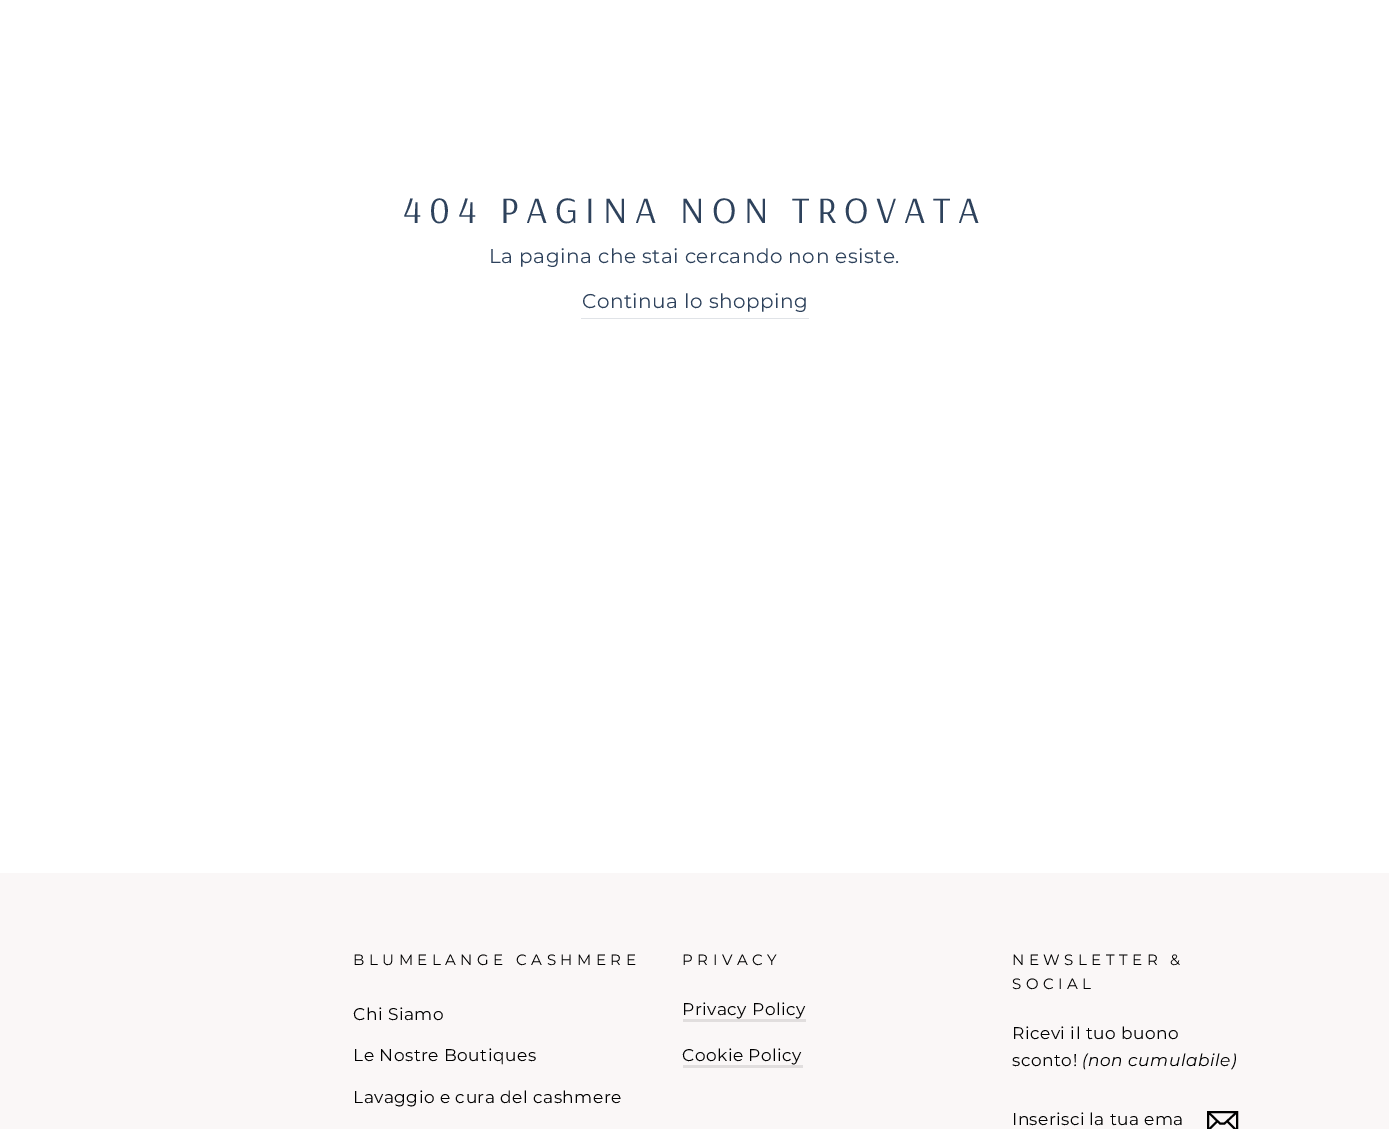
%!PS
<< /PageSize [1389 1129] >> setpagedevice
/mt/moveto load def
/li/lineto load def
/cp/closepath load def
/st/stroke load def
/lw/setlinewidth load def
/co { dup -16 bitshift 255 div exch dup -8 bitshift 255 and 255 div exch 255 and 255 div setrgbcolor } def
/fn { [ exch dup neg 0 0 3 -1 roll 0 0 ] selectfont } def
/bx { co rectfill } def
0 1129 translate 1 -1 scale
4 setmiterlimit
0 0 1389 1129 16#FFFFFF bx
581 318 228 1 16#E0E3E7 bx
0 873 1389 256 16#FAF7F7 bx
683 1019 123 3 16#E1DEDE bx
683 1065 120 3 16#E1DEDE bx
16#000000 co
1.9 lw
1237 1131 mt 1208 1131 li 1208 1112 li 1237 1112 li cp 1208 1112 mt 1220 1123.5 li 1224.5 1123.5 li 1237 1112 li 1217.5 1121 mt 1208 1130.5 li 1236.5 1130.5 mt 1227 1121 li st
/Arsenal-Regular 37.5 fn
16#2E425C co
403 223 mt 7.5 0 (404 PAGINA NON TROVATA) ashow
/Montserrat-Regular 20 fn
489 263 mt .5 0 (La pagina che stai cercando non esiste.) ashow
582 308 mt .5 0 (Continua lo shopping) ashow
/Montserrat-Regular 15 fn
16#000000 co
353 965 mt 4.5 0 (BLUMELANGE CASHMERE) ashow
/Montserrat-Regular 17 fn
353 1020 mt .5 0 (Chi Siamo) ashow
353 1061 mt .5 0 (Le Nostre Boutiques) ashow
353 1103 mt .5 0 (Lavaggio e cura del cashmere) ashow
/Montserrat-Regular 15 fn
682 965 mt 4.5 0 (PRIVACY) ashow
/Montserrat-Regular 17 fn
682 1015 mt .5 0 (Privacy Policy) ashow
682 1061 mt .5 0 (Cookie Policy) ashow
/Montserrat-Regular 15 fn
1012 965 mt 4.5 0 (NEWSLETTER &) ashow
1012 989 mt 4.5 0 (SOCIAL) ashow
/Montserrat-Regular 17 fn
1012 1039 mt .5 0 (Ricevi il tuo buono) ashow
1012 1066 mt .5 0 (sconto!) ashow
/Montserrat-Italic 17 fn
1082 1066 mt .5 0 (\(non cumulabile\)) ashow
/Montserrat-Regular 17 fn
1012 1125 mt .4 0 (Inserisci la tua ema) ashow
showpage
